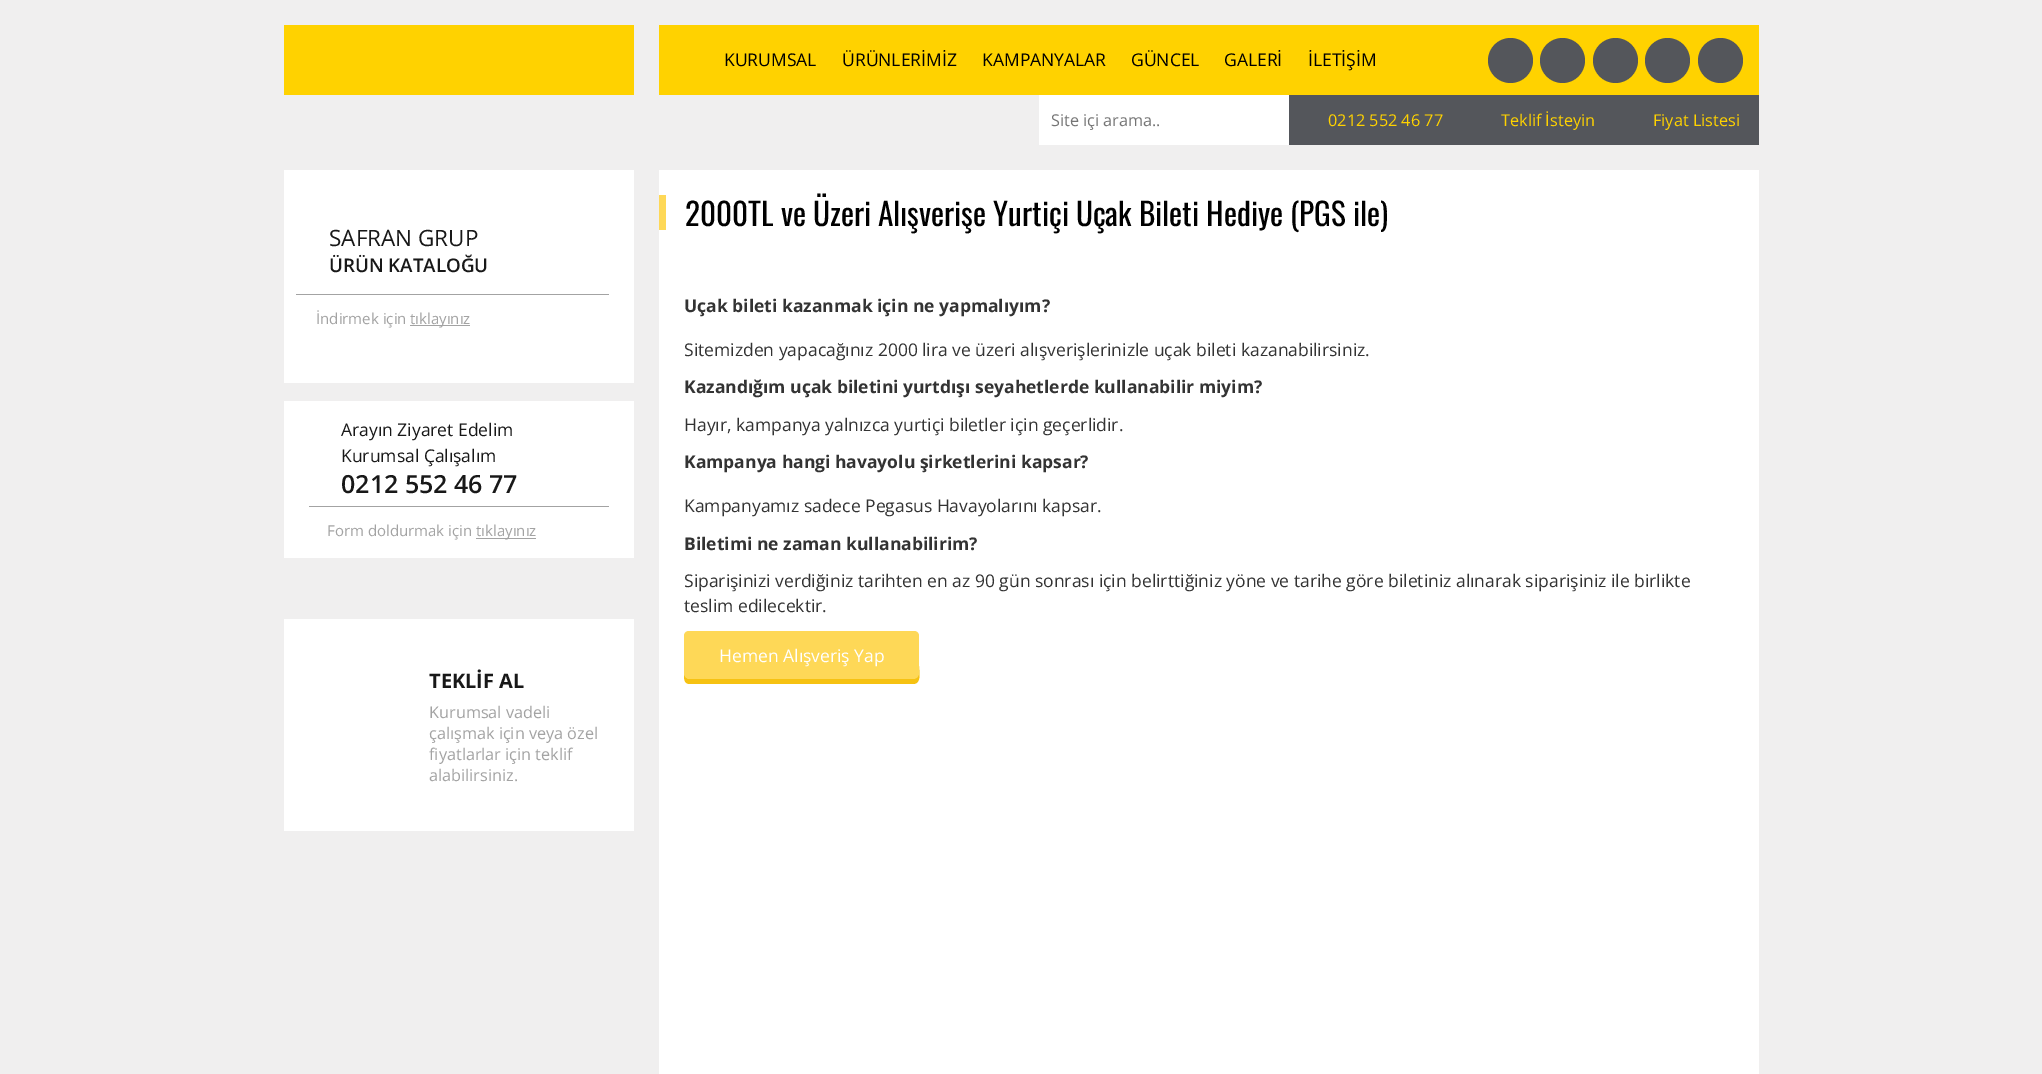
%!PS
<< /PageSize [2042 1074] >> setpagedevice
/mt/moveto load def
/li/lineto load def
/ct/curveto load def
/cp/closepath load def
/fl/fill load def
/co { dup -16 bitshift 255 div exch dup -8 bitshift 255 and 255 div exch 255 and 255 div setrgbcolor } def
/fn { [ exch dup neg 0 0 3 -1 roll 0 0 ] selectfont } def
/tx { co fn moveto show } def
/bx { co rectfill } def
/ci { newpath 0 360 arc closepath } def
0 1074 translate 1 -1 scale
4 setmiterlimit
0 0 2042 1074 16#F0EFEF bx
284 25 350 70 16#FFD200 bx
659 25 1100 70 16#FFD200 bx
16#54565B co
1510.5 60.5 22.5 ci fl
1562.5 60.5 22.5 ci fl
1615.5 60.5 22.5 ci fl
1667.5 60.5 22.5 ci fl
1720.5 60.5 22.5 ci fl
1289 95 470 50 16#54565B bx
1039 95 250 50 16#FFFFFF bx
284 170 350 213 16#FFFFFF bx
296 294 313 1 16#A3A3A3 bx
410 325 60 1 16#A3A3A3 bx
284 401 350 157 16#FFFFFF bx
309 506 300 1 16#A3A3A3 bx
476 538 60 1 16#A3A3A3 bx
284 619 350 212 16#FFFFFF bx
659 170 1100 904 16#FFFFFF bx
659 195 7 35 16#FED857 bx
16#F6C212 co
684 674 mt 684 679 684 684 690 684 ct 913 684 li 922 684 919 671 919 666 ct 919 639 li 919 672 li 919 676 916 679 912 679 ct 690 679 li 687 679 685 677 684 674 ct cp fl
16#FED857 co
689 631 mt 914 631 li 917 631 919 633 919 636 ct 919 673 li 919 676.5 916.5 679 913 679 ct 690 679 li 686.5 679 684 676.5 684 673 ct 684 636 li 684 633 686 631 689 631 ct cp fl
(KURUMSAL) 724 66 /OpenSans-Regular 17.5 16#000000 tx
(ÜRÜNLERİMİZ) 842 66 /OpenSans-Regular 17.5 16#000000 tx
(KAMPANYALAR) 982 66 /OpenSans-Regular 17.5 16#000000 tx
(GÜNCEL) 1131 66 /OpenSans-Regular 17.5 16#000000 tx
(GALERİ) 1224 66 /OpenSans-Regular 17.5 16#000000 tx
(İLETİŞİM) 1308 66 /OpenSans-Regular 17.5 16#000000 tx
(Site içi arama..) 1051 126 /OpenSans-Regular 16.25 16#757575 tx
(0212 552 46 77) 1328 126 /OpenSans-Regular 16.25 16#FFD200 tx
(Teklif İsteyin) 1501 126 /OpenSans-Regular 16.25 16#FFD200 tx
(Fiyat Listesi) 1653 126 /OpenSans-Regular 16.25 16#FFD200 tx
(SAFRAN GRUP) 329 246 /OpenSans-Regular 22.5 16#181818 tx
(ÜRÜN KATALOĞU) 329 272 /OpenSans-SemiBold 18.75 16#181818 tx
(İndirmek için) 316 324 /OpenSans-Regular 15 16#A3A3A3 tx
(tıklayınız) 410 324 /OpenSans-Regular 15 16#A3A3A3 tx
(Arayın Ziyaret Edelim) 341 436 /OpenSans-Regular 17.5 16#181818 tx
(Kurumsal Çalışalım) 341 462 /OpenSans-Regular 17.5 16#181818 tx
(0212 552 46 77) 341 493 /OpenSans-SemiBold 25 16#181818 tx
(Form doldurmak için) 327 536 /OpenSans-Regular 15 16#A3A3A3 tx
(tıklayınız) 476 536 /OpenSans-Regular 15 16#A3A3A3 tx
(TEKLİF AL) 429 688 /OpenSans-Bold 20 16#181818 tx
(Kurumsal vadeli) 429 718 /OpenSans-Regular 16.25 16#A3A3A3 tx
(çalışmak için veya özel) 429 739 /OpenSans-Regular 16.25 16#A3A3A3 tx
(fiyatlarlar için teklif) 429 760 /OpenSans-Regular 16.25 16#A3A3A3 tx
(alabilirsiniz.) 429 781 /OpenSans-Regular 16.25 16#A3A3A3 tx
/Oswald-Regular 31.25 fn
16#000000 co
685 226 mt -.25 0 32 (2000TL ve Üzeri Alışverişe Yurtiçi Uçak Bileti Hediye \(PGS ile\)) widthshow
(Uçak bileti kazanmak için ne yapmalıyım?) 684 312 /OpenSans-Bold 17.5 16#333333 tx
(Sitemizden yapacağınız 2000 lira ve üzeri alışverişlerinizle uçak bileti kazanabilirsiniz.) 684 356 /OpenSans-Regular 17.5 16#333333 tx
(Kazandığım uçak biletini yurtdışı seyahetlerde kullanabilir miyim?) 684 393 /OpenSans-Bold 17.5 16#333333 tx
(Hayır, kampanya yalnızca yurtiçi biletler için geçerlidir.) 684 431 /OpenSans-Regular 17.5 16#333333 tx
(Kampanya hangi havayolu şirketlerini kapsar?) 684 468 /OpenSans-Bold 17.5 16#333333 tx
(Kampanyamız sadece Pegasus Havayolarını kapsar.) 684 512 /OpenSans-Regular 17.5 16#333333 tx
(Biletimi ne zaman kullanabilirim?) 684 550 /OpenSans-Bold 17.5 16#333333 tx
(Siparişinizi verdiğiniz tarihten en az 90 gün sonrası için belirttiğiniz yöne ve tarihe göre biletiniz alınarak siparişiniz ile birlikte) 684 587 /OpenSans-Regular 17.5 16#333333 tx
(teslim edilecektir.) 684 612 /OpenSans-Regular 17.5 16#333333 tx
(Hemen Alışveriş Yap) 719 662 /OpenSans-Regular 17.5 16#FFFFFF tx
showpage
